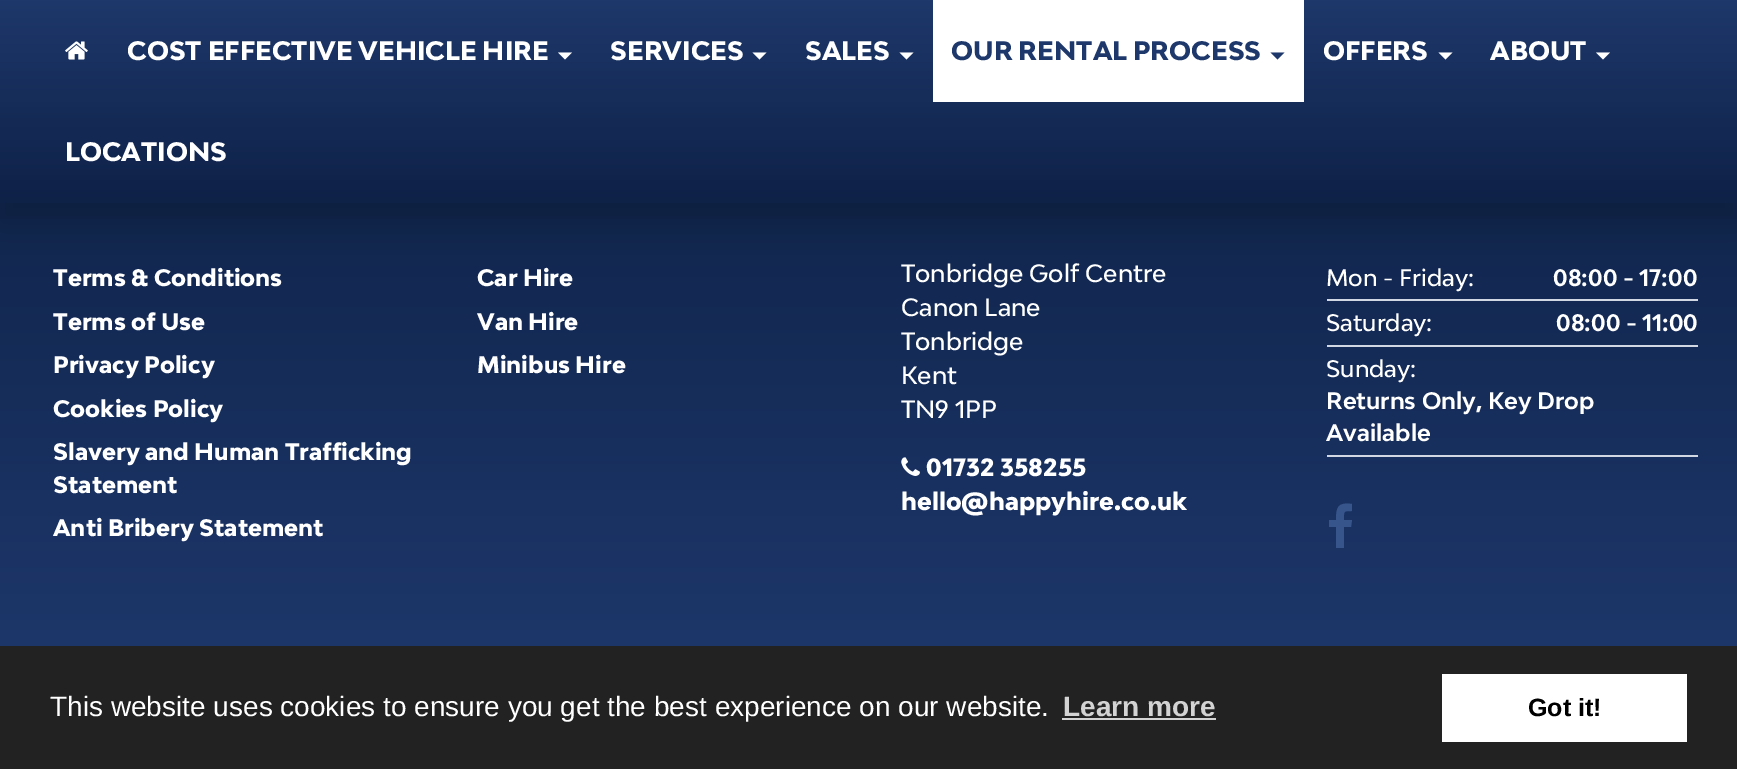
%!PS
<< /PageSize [1737 769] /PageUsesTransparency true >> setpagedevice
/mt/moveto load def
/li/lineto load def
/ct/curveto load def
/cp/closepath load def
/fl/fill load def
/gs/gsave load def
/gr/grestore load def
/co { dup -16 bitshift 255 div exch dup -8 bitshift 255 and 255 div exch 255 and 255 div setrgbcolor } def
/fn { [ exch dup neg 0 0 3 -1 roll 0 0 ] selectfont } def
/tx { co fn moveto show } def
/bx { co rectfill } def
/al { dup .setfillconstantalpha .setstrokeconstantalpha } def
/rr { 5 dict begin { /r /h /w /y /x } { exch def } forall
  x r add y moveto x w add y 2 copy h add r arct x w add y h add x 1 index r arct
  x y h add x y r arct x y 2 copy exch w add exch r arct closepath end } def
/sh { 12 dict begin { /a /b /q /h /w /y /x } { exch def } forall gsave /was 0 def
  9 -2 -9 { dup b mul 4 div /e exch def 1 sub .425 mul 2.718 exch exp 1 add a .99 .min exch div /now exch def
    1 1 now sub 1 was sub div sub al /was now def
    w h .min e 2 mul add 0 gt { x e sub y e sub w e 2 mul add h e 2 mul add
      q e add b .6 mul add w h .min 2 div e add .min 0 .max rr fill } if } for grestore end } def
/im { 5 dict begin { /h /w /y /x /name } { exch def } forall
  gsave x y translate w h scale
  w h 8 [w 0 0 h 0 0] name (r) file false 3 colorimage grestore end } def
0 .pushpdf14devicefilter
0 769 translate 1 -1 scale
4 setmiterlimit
0 0 1737 769 16#FFFFFF bx
gs 0 203 mt 1737 203 li 1737 646 li 0 646 li cp clip newpath
<< /ShadingType 2 /ColorSpace /DeviceRGB /Coords [0 670 0 81] /Extend [true true] /Function << /FunctionType 2 /Domain [0 1] /C0 [.118 .22 .42] /C1 [.055 .129 .278] /N 1 >> >> shfill gr
16#000000 co
0 18 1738 203 0 17.5 .2 sh
gs 0 0 mt 1737 0 li 1737 203 li 0 203 li cp clip newpath
<< /ShadingType 2 /ColorSpace /DeviceRGB /Coords [0 203 0 0] /Extend [true true] /Function << /FunctionType 2 /Domain [0 1] /C0 [.055 .129 .278] /C1 [.118 .22 .42] /N 1 >> >> shfill gr
(media/1.raw) 65 41 23 19 im
16#FFFFFF co
558 52.5 mt 572 52.5 li 565 59.5 li cp fl
752.5 52.5 mt 766.5 52.5 li 759.5 59.5 li cp fl
899.5 52.5 mt 913.5 52.5 li 906.5 59.5 li cp fl
933 0 371 102 16#FFFFFF bx
16#1E386B co
1270.5 52.5 mt 1284.5 52.5 li 1277.5 59.5 li cp fl
16#FFFFFF co
1438.5 52.5 mt 1452.5 52.5 li 1445.5 59.5 li cp fl
1596 52.5 mt 1610 52.5 li 1603 59.5 li cp fl
(media/2.raw) 901 457 19 19 im
1327 299 371 2 16#D1D8E3 bx
1327 345 371 2 16#D1D8E3 bx
1327 455 371 2 16#D1D8E3 bx
16#37558B co
1352 504 mt 1352 511 li 1343 511 1344 511 1344 520 ct 1352 520 li 1351 527 li 1344 527 li 1344 548 li 1336 548 li 1336 527 li 1329 527 li 1329 520 li 1336 520 li 1336 507 1338 502 1352 504 ct cp fl
0 646 1737 123 16#222222 bx
1062 718 154 2 16#D3D3D3 bx
1442 674 245 68 16#FFFFFF bx
(COST EFFECTIVE VEHICLE HIRE) 127 60 /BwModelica-ExtraBold 25.25 16#FFFFFF tx
(SERVICES) 610 60 /BwModelica-ExtraBold 25.25 16#FFFFFF tx
(SALES) 805 60 /BwModelica-ExtraBold 25.25 16#FFFFFF tx
(OUR RENTAL PROCESS) 951 60 /BwModelica-ExtraBold 25.25 16#1E386B tx
(OFFERS) 1323 60 /BwModelica-ExtraBold 25.25 16#FFFFFF tx
(ABOUT) 1490 60 /BwModelica-ExtraBold 25.25 16#FFFFFF tx
(LOCATIONS) 65 161 /BwModelica-ExtraBold 25.25 16#FFFFFF tx
(Terms & Conditions) 53 286 /BwModelica-ExtraBold 22.6 16#FFFFFF tx
(Terms of Use) 53 330 /BwModelica-ExtraBold 22.6 16#FFFFFF tx
(Privacy Policy) 53 373 /BwModelica-ExtraBold 22.6 16#FFFFFF tx
(Cookies Policy) 53 417 /BwModelica-ExtraBold 22.6 16#FFFFFF tx
(Slavery and Human Trafficking) 53 460 /BwModelica-ExtraBold 22.6 16#FFFFFF tx
(Statement) 53 493 /BwModelica-ExtraBold 22.6 16#FFFFFF tx
(Anti Bribery Statement) 53 536 /BwModelica-ExtraBold 22.6 16#FFFFFF tx
(Car Hire) 477 286 /BwModelica-ExtraBold 22.6 16#FFFFFF tx
(Van Hire) 477 330 /BwModelica-ExtraBold 22.6 16#FFFFFF tx
(Minibus Hire) 477 373 /BwModelica-ExtraBold 22.6 16#FFFFFF tx
(Tonbridge Golf Centre) 901 282 /BwModelica-Medium 23.75 16#FFFFFF tx
(Canon Lane) 901 316 /BwModelica-Medium 23.75 16#FFFFFF tx
(Tonbridge) 901 350 /BwModelica-Medium 23.75 16#FFFFFF tx
(Kent) 901 384 /BwModelica-Medium 23.75 16#FFFFFF tx
(TN9 1PP) 901 418 /BwModelica-Medium 23.75 16#FFFFFF tx
(01732 358255) 926 476 /BwModelica-ExtraBold 23.75 16#FFFFFF tx
(hello@happyhire.co.uk) 901 510 /BwModelica-ExtraBold 23.75 16#FFFFFF tx
(Mon - Friday:) 1326 286 /BwModelica-Medium 22.6 16#FFFFFF tx
(08:00 - 17:00) 1553 286 /BwModelica-Bold 22.6 16#FFFFFF tx
(Saturday:) 1326 331 /BwModelica-Medium 22.6 16#FFFFFF tx
(08:00 - 11:00) 1556 331 /BwModelica-Bold 22.6 16#FFFFFF tx
(Sunday:) 1326 377 /BwModelica-Medium 22.6 16#FFFFFF tx
(Returns Only, Key Drop) 1326 409 /BwModelica-Bold 22.6 16#FFFFFF tx
(Available) 1326 441 /BwModelica-Bold 22.6 16#FFFFFF tx
(This website uses cookies to ensure you get the best experience on our website.) 50 716 /LiberationSans-Regular 28 16#FFFFFF tx
(Learn more) 1063 716 /LiberationSans-Bold 28 16#D3D3D3 tx
(Got it!) 1528 716 /LiberationSans-Bold 25 16#000000 tx
.poppdf14devicefilter showpage
